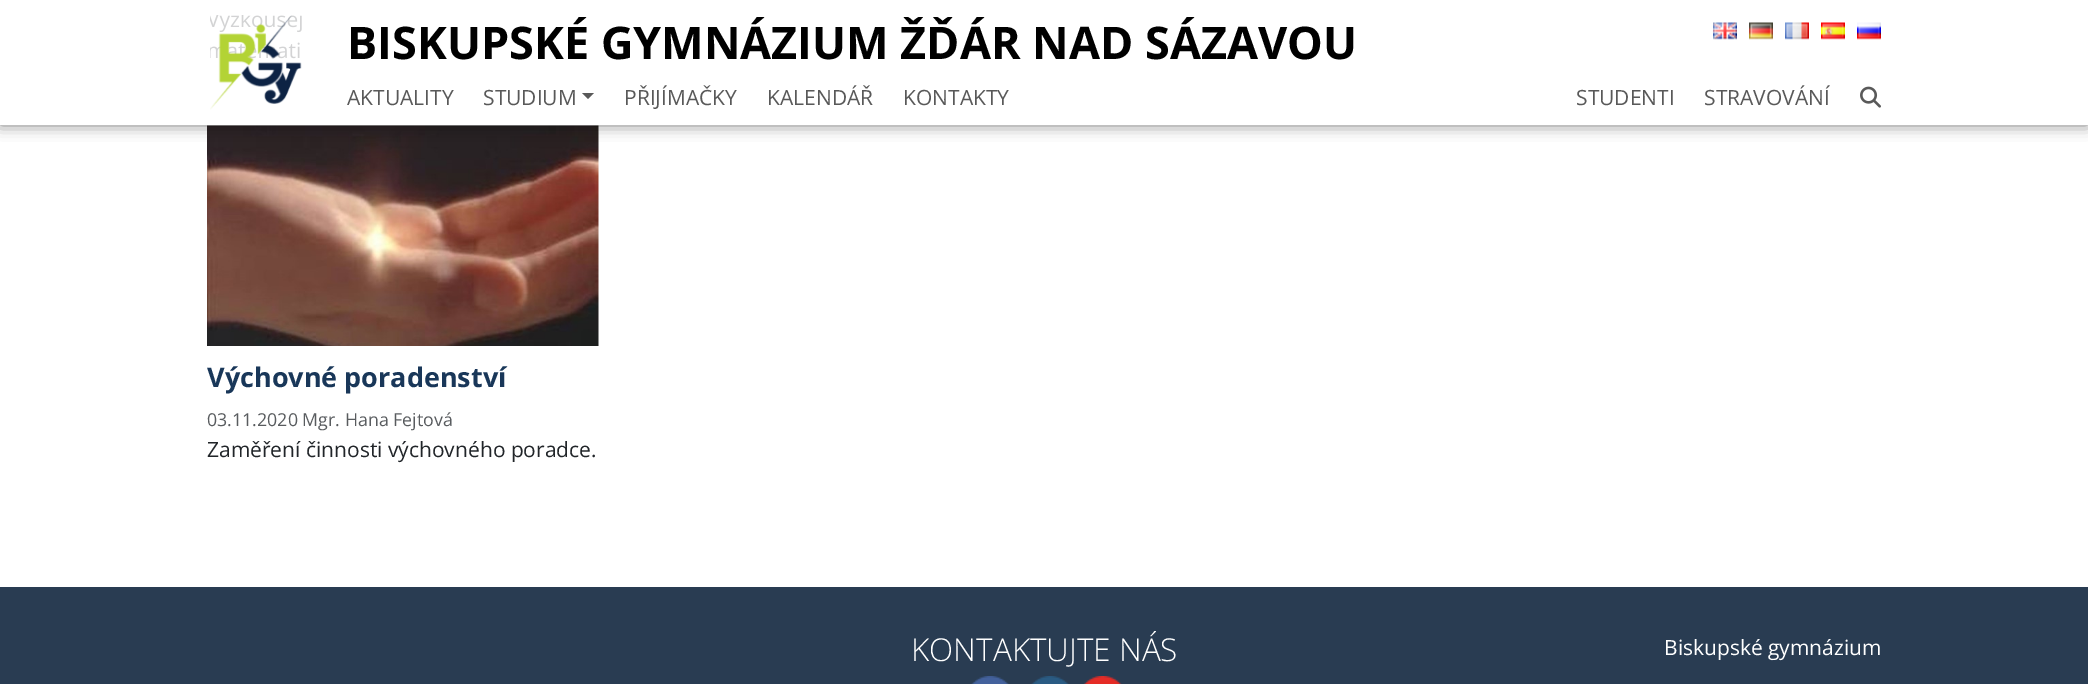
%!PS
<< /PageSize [2088 684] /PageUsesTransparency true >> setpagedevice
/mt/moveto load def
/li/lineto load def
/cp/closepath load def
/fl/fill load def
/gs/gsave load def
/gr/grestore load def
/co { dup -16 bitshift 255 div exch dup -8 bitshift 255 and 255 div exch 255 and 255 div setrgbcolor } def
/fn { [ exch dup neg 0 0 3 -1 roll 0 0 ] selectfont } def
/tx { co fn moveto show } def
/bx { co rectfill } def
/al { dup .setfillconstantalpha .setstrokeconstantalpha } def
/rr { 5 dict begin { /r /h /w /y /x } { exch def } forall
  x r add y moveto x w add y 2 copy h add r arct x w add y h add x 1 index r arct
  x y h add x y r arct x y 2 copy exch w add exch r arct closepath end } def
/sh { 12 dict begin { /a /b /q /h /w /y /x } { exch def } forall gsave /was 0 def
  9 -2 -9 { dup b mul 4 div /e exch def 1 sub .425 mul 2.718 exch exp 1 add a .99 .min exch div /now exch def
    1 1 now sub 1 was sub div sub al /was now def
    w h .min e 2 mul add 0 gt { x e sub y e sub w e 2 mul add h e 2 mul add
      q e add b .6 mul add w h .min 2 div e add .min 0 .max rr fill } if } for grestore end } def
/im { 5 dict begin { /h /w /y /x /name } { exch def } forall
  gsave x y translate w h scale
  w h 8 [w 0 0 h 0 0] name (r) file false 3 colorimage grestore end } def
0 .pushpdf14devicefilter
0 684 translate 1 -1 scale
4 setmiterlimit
0 0 2088 684 16#FFFFFF bx
(media/8.raw) 207 125 392 221 im
gs
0 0 mt 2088 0 li 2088 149 li 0 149 li cp 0 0 mt 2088 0 li 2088 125 li 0 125 li cp eoclip newpath
16#000000 co
0 0 2088 125 0 7.5 .5 sh
gr
0.8 al
0 124 2088 1 16#FFFFFF bx
1 al
(media/1.raw) 210 15 92 95 im
(media/2.raw) 1713 22 24 18 im
(media/3.raw) 1749 22 24 18 im
(media/4.raw) 1785 22 24 18 im
(media/5.raw) 1821 22 24 18 im
(media/6.raw) 1857 22 24 18 im
16#595959 co
582 93 mt 594 93 li 588 99 li cp fl
(media/7.raw) 1860 86 21 22 im
0 587 2088 97 16#293C52 bx
(media/9.raw) 971 676 38 8 im
(media/10.raw) 1031 676 38 8 im
(media/11.raw) 1084 676 38 8 im
(BISKUPSKÉ GYMNÁZIUM ŽĎÁR NAD SÁZAVOU) 347 59 /OpenSans-Bold 45 16#000000 tx
(AKTUALITY) 347 105 /OpenSans-Regular 21 16#595959 tx
(STUDIUM) 483 105 /OpenSans-Regular 21 16#595959 tx
(PŘIJÍMAČKY) 624 105 /OpenSans-Regular 21 16#595959 tx
(KALENDÁŘ) 767 105 /OpenSans-Regular 21 16#595959 tx
(KONTAKTY) 903 105 /OpenSans-Regular 21 16#595959 tx
(STUDENTI) 1576 105 /OpenSans-Regular 21 16#595959 tx
(STRAVOVÁNÍ) 1704 105 /OpenSans-Regular 21 16#595959 tx
(Výchovné poradenství) 207 387 /OpenSans-Bold 27 16#193759 tx
(03.11.2020 Mgr. Hana Fejtová) 207 426 /OpenSans-Regular 17.8 16#595C5F tx
(Zaměření činnosti výchovného poradce.) 207 457 /OpenSans-Regular 21 16#212529 tx
(KONTAKTUJTE NÁS) 911 661 /OpenSans-Light 31.5 16#FFFFFF tx
(Biskupské gymnázium) 1664 655 /OpenSans-Regular 21 16#FFFFFF tx
.poppdf14devicefilter showpage
